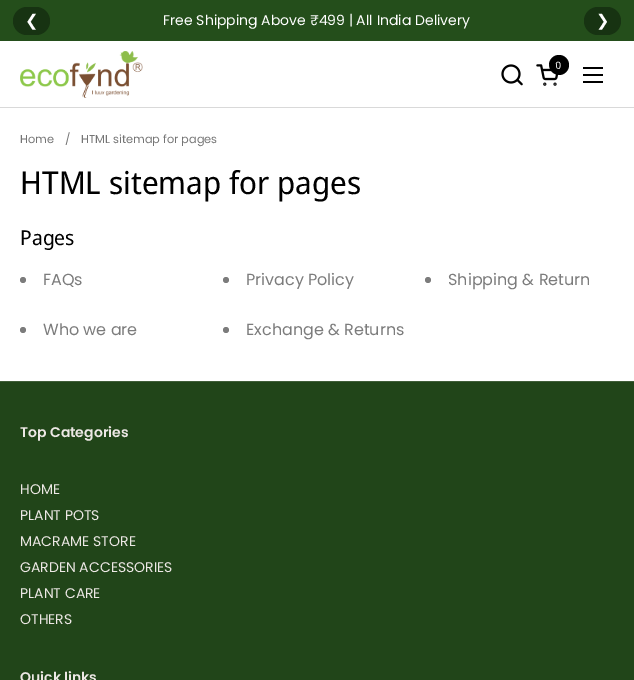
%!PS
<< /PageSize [634 680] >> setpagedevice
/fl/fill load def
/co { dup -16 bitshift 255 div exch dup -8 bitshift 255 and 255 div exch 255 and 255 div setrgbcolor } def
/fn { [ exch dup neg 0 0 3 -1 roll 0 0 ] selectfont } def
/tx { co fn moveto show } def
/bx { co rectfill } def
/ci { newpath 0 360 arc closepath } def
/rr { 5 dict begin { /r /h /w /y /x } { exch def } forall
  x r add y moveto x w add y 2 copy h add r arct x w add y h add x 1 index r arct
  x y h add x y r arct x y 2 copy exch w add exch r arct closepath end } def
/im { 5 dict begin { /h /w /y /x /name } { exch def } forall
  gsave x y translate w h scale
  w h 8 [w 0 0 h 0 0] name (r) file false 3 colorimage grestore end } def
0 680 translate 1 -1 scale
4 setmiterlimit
0 0 634 680 16#FFFFFF bx
0 0 634 41 16#244E1B bx
16#173312 co
13 7 37 28 14 rr fl
584 7 37 28 14 rr fl
(media/1.raw) 20 51 123 47 im
(media/2.raw) 501 64 22 22 im
16#000000 co
559 65 10 ci fl
583 67 20 2 16#000000 bx
583 74 20 2 16#000000 bx
583 81 20 2 16#000000 bx
0 107 634 1 16#D9D9D9 bx
16#7C7C7C co
23 280 3 ci fl
226 280 3 ci fl
428 280 3 ci fl
23 330 3 ci fl
226 330 3 ci fl
0 382 634 298 16#214519 bx
0 381 634 1 16#405D38 bx
(❮) 25 26 /DejaVuSans-Regular 16 16#FFFFFF tx
(Free Shipping Above ₹499 | All India Delivery) 163 25 /Poppins-Regular 14 16#FFFFFF tx
(❯) 596 26 /DejaVuSans-Regular 16 16#FFFFFF tx
(0) 555 69 /Poppins-Regular 10 16#FFFFFF tx
(media/3.raw) 536 64 23 22 im
(Home) 20 143 /Poppins-Regular 11.4 16#757575 tx
(/) 65 143 /Poppins-Regular 11.4 16#757575 tx
(HTML sitemap for pages) 81 143 /Poppins-Regular 11.4 16#757575 tx
(HTML sitemap for pages) 20 194 /NotoSansDisplay-Regular 31.5 16#000000 tx
(Pages) 20 245 /NotoSansDisplay-Regular 20.5 16#000000 tx
(FAQs) 43 285 /Poppins-Regular 16 16#7C7C7C tx
(Privacy Policy) 246 285 /Poppins-Regular 16 16#7C7C7C tx
(Shipping & Return) 448 285 /Poppins-Regular 16 16#7C7C7C tx
(Who we are) 43 335 /Poppins-Regular 16 16#7C7C7C tx
(Exchange & Returns) 246 335 /Poppins-Regular 16 16#7C7C7C tx
(Top Categories) 20 437 /Poppins-SemiBold 14 16#EDE8E5 tx
(HOME) 20 494 /Poppins-Regular 14 16#EDE8E5 tx
(PLANT POTS) 20 520 /Poppins-Regular 14 16#EDE8E5 tx
(MACRAME STORE) 20 546 /Poppins-Regular 14 16#EDE8E5 tx
(GARDEN ACCESSORIES) 20 572 /Poppins-Regular 14 16#EDE8E5 tx
(PLANT CARE) 20 598 /Poppins-Regular 14 16#EDE8E5 tx
(OTHERS) 20 624 /Poppins-Regular 14 16#EDE8E5 tx
(Quick links) 20 682 /Poppins-SemiBold 14 16#EDE8E5 tx
showpage
